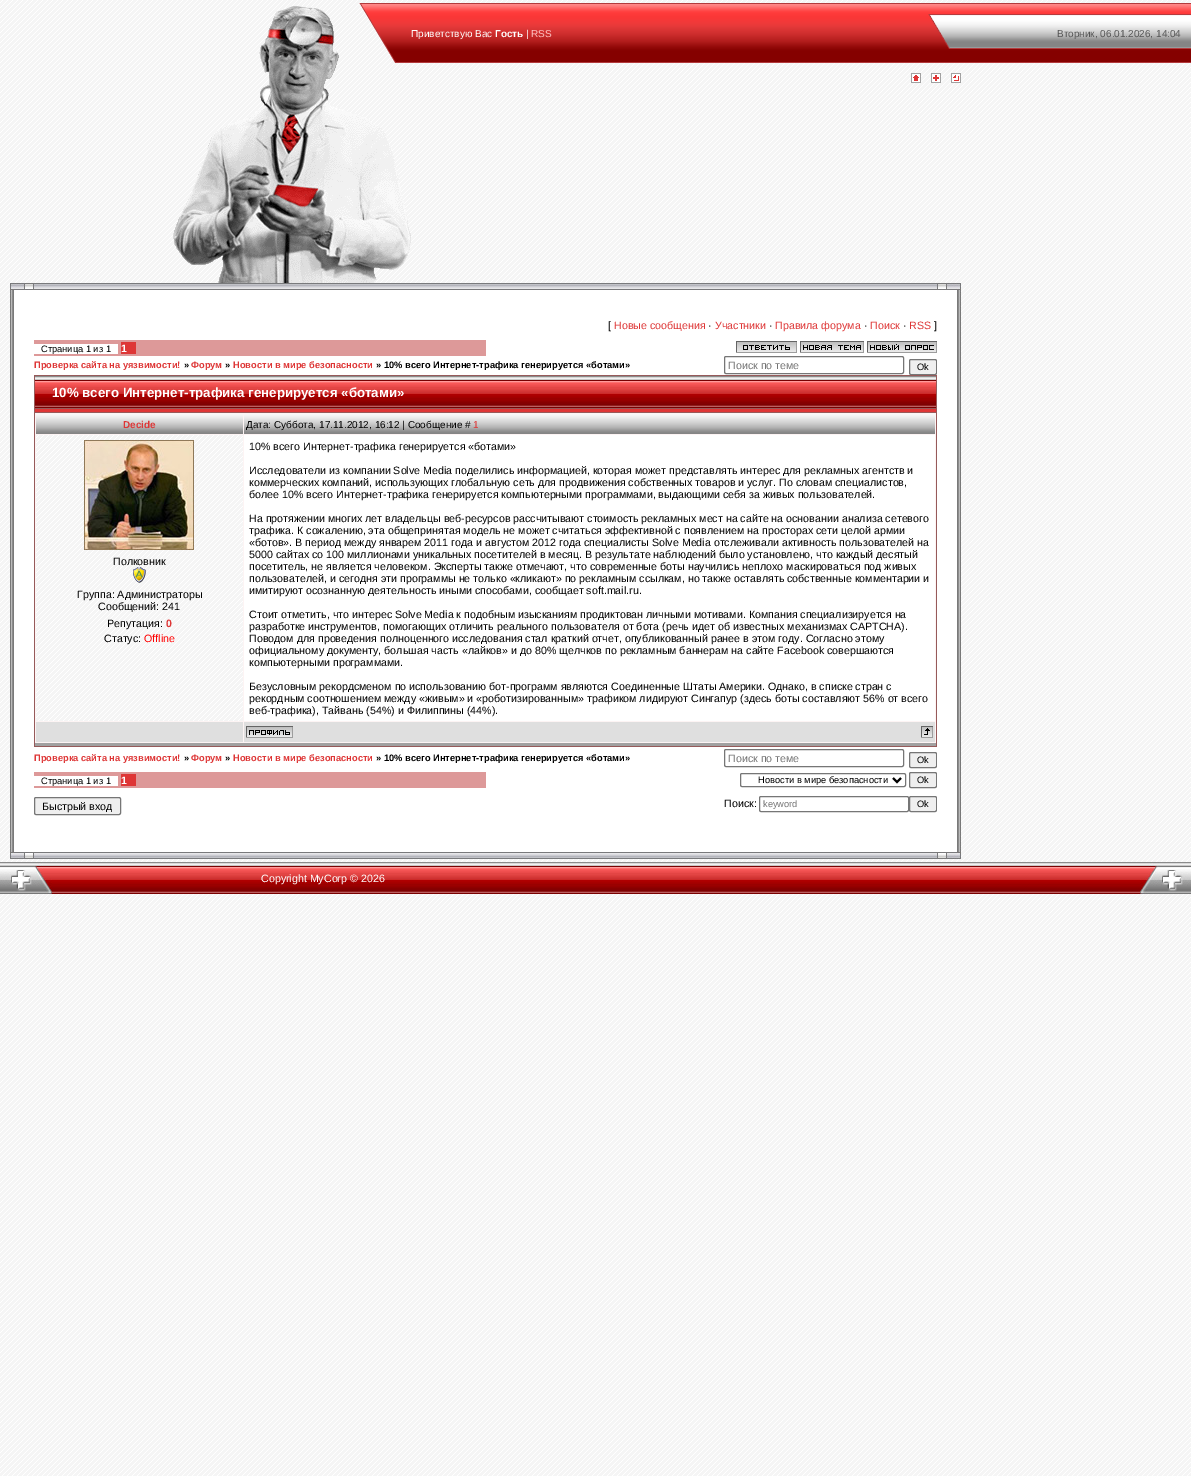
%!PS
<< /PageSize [1191 1476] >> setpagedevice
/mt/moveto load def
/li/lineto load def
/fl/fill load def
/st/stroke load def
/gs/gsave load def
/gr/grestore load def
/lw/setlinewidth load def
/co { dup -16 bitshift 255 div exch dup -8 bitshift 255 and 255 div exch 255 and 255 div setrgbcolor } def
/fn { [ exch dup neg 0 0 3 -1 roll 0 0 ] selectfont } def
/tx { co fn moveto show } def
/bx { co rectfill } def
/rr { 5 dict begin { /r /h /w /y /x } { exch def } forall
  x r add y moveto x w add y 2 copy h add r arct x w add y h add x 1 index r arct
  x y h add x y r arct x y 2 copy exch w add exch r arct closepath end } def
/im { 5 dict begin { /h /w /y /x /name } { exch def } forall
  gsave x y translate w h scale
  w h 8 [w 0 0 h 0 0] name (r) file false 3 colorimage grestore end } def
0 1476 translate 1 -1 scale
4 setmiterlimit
0 0 1191 1476 16#FFFFFF bx
(media/1.raw) 0 0 1191 1476 im
(media/2.raw) 259 6 80 57 im
(media/3.raw) 359 3 52 60 im
(media/4.raw) 411 3 500 60 im
(media/5.raw) 911 3 57 60 im
(media/6.raw) 173 63 184 220 im
(media/7.raw) 911 73 10 10 im
(media/8.raw) 931 73 10 10 im
(media/9.raw) 951 73 10 10 im
(media/10.raw) 357 115 54 168 im
(media/11.raw) 10 283 24 27 im
(media/12.raw) 34 283 903 27 im
(media/13.raw) 937 283 24 27 im
(media/14.raw) 10 310 24 522 im
34 310 903 522 16#FFFFFF bx
34 340 452 16 16#DD9999 bx
34 344 84 10 16#FFFFFF bx
121 342 15 12 16#DE3636 bx
(media/15.raw) 736 341 61 12 im
(media/16.raw) 800 341 64 12 im
(media/17.raw) 867 341 70 12 im
16#767676 co
724.5 356.5 179 17 1.5 rr st
16#EFEFEF co
909.5 359.5 27 15 1.5 rr gs fl gr
16#767676 co
st
34 375 903 372 16#965A5A bx
(media/18.raw) 35 376 901 32 im
35 409 901 3 16#DE3636 bx
35 413 901 330 16#FDF4F4 bx
35 743 901 3 16#A1A1A1 bx
(media/19.raw) 36 414 207 20 im
(media/20.raw) 244 414 691 20 im
(media/21.raw) 36 435 207 286 im
(media/22.raw) 84 440 110 110 im
(media/23.raw) 133 567 13 16 im
244 435 691 286 16#FFFFFF bx
36 722 207 20 16#DFDFDF bx
244 722 691 20 16#DFDFDF bx
(media/24.raw) 246 726 47 12 im
(media/25.raw) 921 726 12 12 im
16#767676 co
724.5 749.5 179 17 1.5 rr st
16#EFEFEF co
909.5 752.5 27 15 1.5 rr gs fl gr
16#767676 co
st
34 772 452 16 16#DD9999 bx
34 776 84 10 16#FFFFFF bx
121 774 15 12 16#DE3636 bx
16#767676 co
740.5 773.5 165 13 1.5 rr st
16#000000 co
2 lw
893 778 mt 897 782 li 901 778 li st
16#EFEFEF co
909.5 772.5 27 15 1.5 rr gs fl gr
16#767676 co
1 lw
st
16#EFEFEF co
34.5 797.5 86 17 1.5 rr gs fl gr
16#767676 co
st
759.5 796.5 149 15 1.5 rr st
16#EFEFEF co
909.5 796.5 27 15 1.5 rr gs fl gr
16#767676 co
st
(media/26.raw) 937 310 24 522 im
(media/27.raw) 10 832 24 27 im
(media/28.raw) 34 832 903 27 im
(media/29.raw) 937 832 24 27 im
(media/30.raw) 968 3 223 60 im
(media/31.raw) 52 862 1088 32 im
(media/32.raw) 0 862 52 32 im
(media/33.raw) 1140 862 51 32 im
(Приветствую Вас) 411 37 /LiberationSans-Regular 10 16#FFFFFF tx
(Гость) 495 37 /LiberationSans-Bold 10 16#FFFFFF tx
(|) 526 37 /LiberationSans-Regular 10 16#FFFFFF tx
(RSS) 531 37 /LiberationSans-Regular 10 16#FFC5C5 tx
([) 608 329 /LiberationSans-Regular 10.67 16#000000 tx
(Новые сообщения) 614 329 /LiberationSans-Regular 10.67 16#DE3636 tx
(·) 708 329 /LiberationSans-Regular 10.67 16#000000 tx
(Участники) 715 329 /LiberationSans-Regular 10.67 16#DE3636 tx
(·) 769 329 /LiberationSans-Regular 10.67 16#000000 tx
(Правила форума) 775 329 /LiberationSans-Regular 10.67 16#DE3636 tx
(·) 864 329 /LiberationSans-Regular 10.67 16#000000 tx
(Поиск) 870 329 /LiberationSans-Regular 10.67 16#DE3636 tx
(·) 903 329 /LiberationSans-Regular 10.67 16#000000 tx
(RSS) 909 329 /LiberationSans-Regular 10.67 16#DE3636 tx
(]) 934 329 /LiberationSans-Regular 10.67 16#000000 tx
(Страница 1 из 1) 41 352 /LiberationSans-Regular 9.3 16#000000 tx
(1) 121 352 /LiberationSans-Bold 10.67 16#FFFFFF tx
(Проверка сайта на уязвимости!) 34 368 /LiberationSans-Bold 9.3 16#DE3636 tx
(») 184 368 /LiberationSans-Bold 9.3 16#000000 tx
(Форум) 191 368 /LiberationSans-Bold 9.3 16#DE3636 tx
(») 225 368 /LiberationSans-Bold 9.3 16#000000 tx
(Новости в мире безопасности) 233 368 /LiberationSans-Bold 9.3 16#DE3636 tx
(» 10% всего Интернет-трафика генерируется «ботами») 376 368 /LiberationSans-Bold 9.3 16#000000 tx
(Поиск по теме) 728 369 /LiberationSans-Regular 10.67 16#757575 tx
(Ok) 917 370 /LiberationSans-Regular 9.3 16#000000 tx
(10% всего Интернет-трафика генерируется «ботами») 52 397 /LiberationSans-Bold 13.3 16#FFFFFF tx
(Decide) 123 428 /LiberationSans-Bold 10 16#DE3636 tx
(Дата: Суббота, 17.11.2012, 16:12 | Сообщение #) 246 428 /LiberationSans-Regular 10 16#000000 tx
(1) 473 428 /LiberationSans-Regular 10 16#DE3636 tx
(Полковник) 113 565 /LiberationSans-Regular 10.67 16#000000 tx
(Группа: Администраторы) 77 598 /LiberationSans-Regular 10.67 16#000000 tx
(Сообщений: 241) 98 610 /LiberationSans-Regular 10.67 16#000000 tx
(Репутация:) 107 627 /LiberationSans-Regular 10.67 16#000000 tx
(0) 166 627 /LiberationSans-Bold 10.67 16#DE3636 tx
(Статус:) 104 642 /LiberationSans-Regular 10.67 16#000000 tx
(Offline) 144 642 /LiberationSans-Regular 10.67 16#FF0000 tx
(10% всего Интернет-трафика генерируется «ботами») 249 450 /LiberationSans-Regular 10.67 16#000000 tx
(Исследователи из компании Solve Media поделились информацией, которая может представлять интерес для рекламных агентств и) 249 474 /LiberationSans-Regular 10.67 16#000000 tx
(коммерческих компаний, использующих глобальную сеть для продвижения собственных товаров и услуг. По словам специалистов,) 249 486 /LiberationSans-Regular 10.67 16#000000 tx
(более 10% всего Интернет-трафика генерируется компьютерными программами, выдающими себя за живых пользователей.) 249 498 /LiberationSans-Regular 10.67 16#000000 tx
(На протяжении многих лет владельцы веб-ресурсов рассчитывают стоимость рекламных мест на сайте на основании анализа сетевого) 249 522 /LiberationSans-Regular 10.67 16#000000 tx
(трафика. К сожалению, эта общепринятая модель не может считаться эффективной с появлением на просторах сети целой армии) 249 534 /LiberationSans-Regular 10.67 16#000000 tx
(«ботов». В период между январем 2011 года и августом 2012 года специалисты Solve Media отслеживали активность пользователей на) 249 546 /LiberationSans-Regular 10.67 16#000000 tx
(5000 сайтах со 100 миллионами уникальных посетителей в месяц. В результате наблюдений было установлено, что каждый десятый) 249 558 /LiberationSans-Regular 10.67 16#000000 tx
(посетитель, не является человеком. Эксперты также отмечают, что современные боты научились неплохо маскироваться под живых) 249 570 /LiberationSans-Regular 10.67 16#000000 tx
(пользователей, и сегодня эти программы не только «кликают» по рекламным ссылкам, но также оставлять собственные комментарии и) 249 582 /LiberationSans-Regular 10.67 16#000000 tx
(имитируют осознанную деятельность иными способами, сообщает soft.mail.ru.) 249 594 /LiberationSans-Regular 10.67 16#000000 tx
(Стоит отметить, что интерес Solve Media к подобным изысканиям продиктован личными мотивами. Компания специализируется на) 249 618 /LiberationSans-Regular 10.67 16#000000 tx
(разработке инструментов, помогающих отличить реального пользователя от бота \(речь идет об известных механизмах CAPTCHA\).) 249 630 /LiberationSans-Regular 10.67 16#000000 tx
(Поводом для проведения полноценного исследования стал краткий отчет, опубликованный ранее в этом году. Согласно этому) 249 642 /LiberationSans-Regular 10.67 16#000000 tx
(официальному документу, большая часть «лайков» и до 80% щелчков по рекламным баннерам на сайте Facebook совершаются) 249 654 /LiberationSans-Regular 10.67 16#000000 tx
(компьютерными программами.) 249 666 /LiberationSans-Regular 10.67 16#000000 tx
(Безусловным рекордсменом по использованию бот-программ являются Соединенные Штаты Америки. Однако, в списке стран с) 249 690 /LiberationSans-Regular 10.67 16#000000 tx
(рекордным соотношением между «живым» и «роботизированным» трафиком лидируют Сингапур \(здесь боты составляют 56% от всего) 249 702 /LiberationSans-Regular 10.67 16#000000 tx
(веб-трафика\), Тайвань \(54%\) и Филиппины \(44%\).) 249 714 /LiberationSans-Regular 10.67 16#000000 tx
(Проверка сайта на уязвимости!) 34 761 /LiberationSans-Bold 9.3 16#DE3636 tx
(») 184 761 /LiberationSans-Bold 9.3 16#000000 tx
(Форум) 191 761 /LiberationSans-Bold 9.3 16#DE3636 tx
(») 225 761 /LiberationSans-Bold 9.3 16#000000 tx
(Новости в мире безопасности) 233 761 /LiberationSans-Bold 9.3 16#DE3636 tx
(» 10% всего Интернет-трафика генерируется «ботами») 376 761 /LiberationSans-Bold 9.3 16#000000 tx
(Поиск по теме) 728 762 /LiberationSans-Regular 10.67 16#757575 tx
(Ok) 917 763 /LiberationSans-Regular 9.3 16#000000 tx
(Страница 1 из 1) 41 784 /LiberationSans-Regular 9.3 16#000000 tx
(1) 121 784 /LiberationSans-Bold 10.67 16#FFFFFF tx
(Новости в мире безопасности) 758 783 /LiberationSans-Regular 9.3 16#000000 tx
(Ok) 917 783 /LiberationSans-Regular 9.3 16#000000 tx
(Быстрый вход) 42 810 /LiberationSans-Regular 10.67 16#000000 tx
(Поиск:) 724 807 /LiberationSans-Regular 10.67 16#000000 tx
(keyword) 763 807 /LiberationSans-Regular 9.3 16#757575 tx
(Ok) 917 807 /LiberationSans-Regular 9.3 16#000000 tx
(Вторник, 06.01.2026, 14:04) 1057 37 /LiberationSans-Regular 10 16#555555 tx
(Copyright MyCorp © 2026) 261 882 /LiberationSans-Regular 10.67 16#FFFFFF tx
showpage
